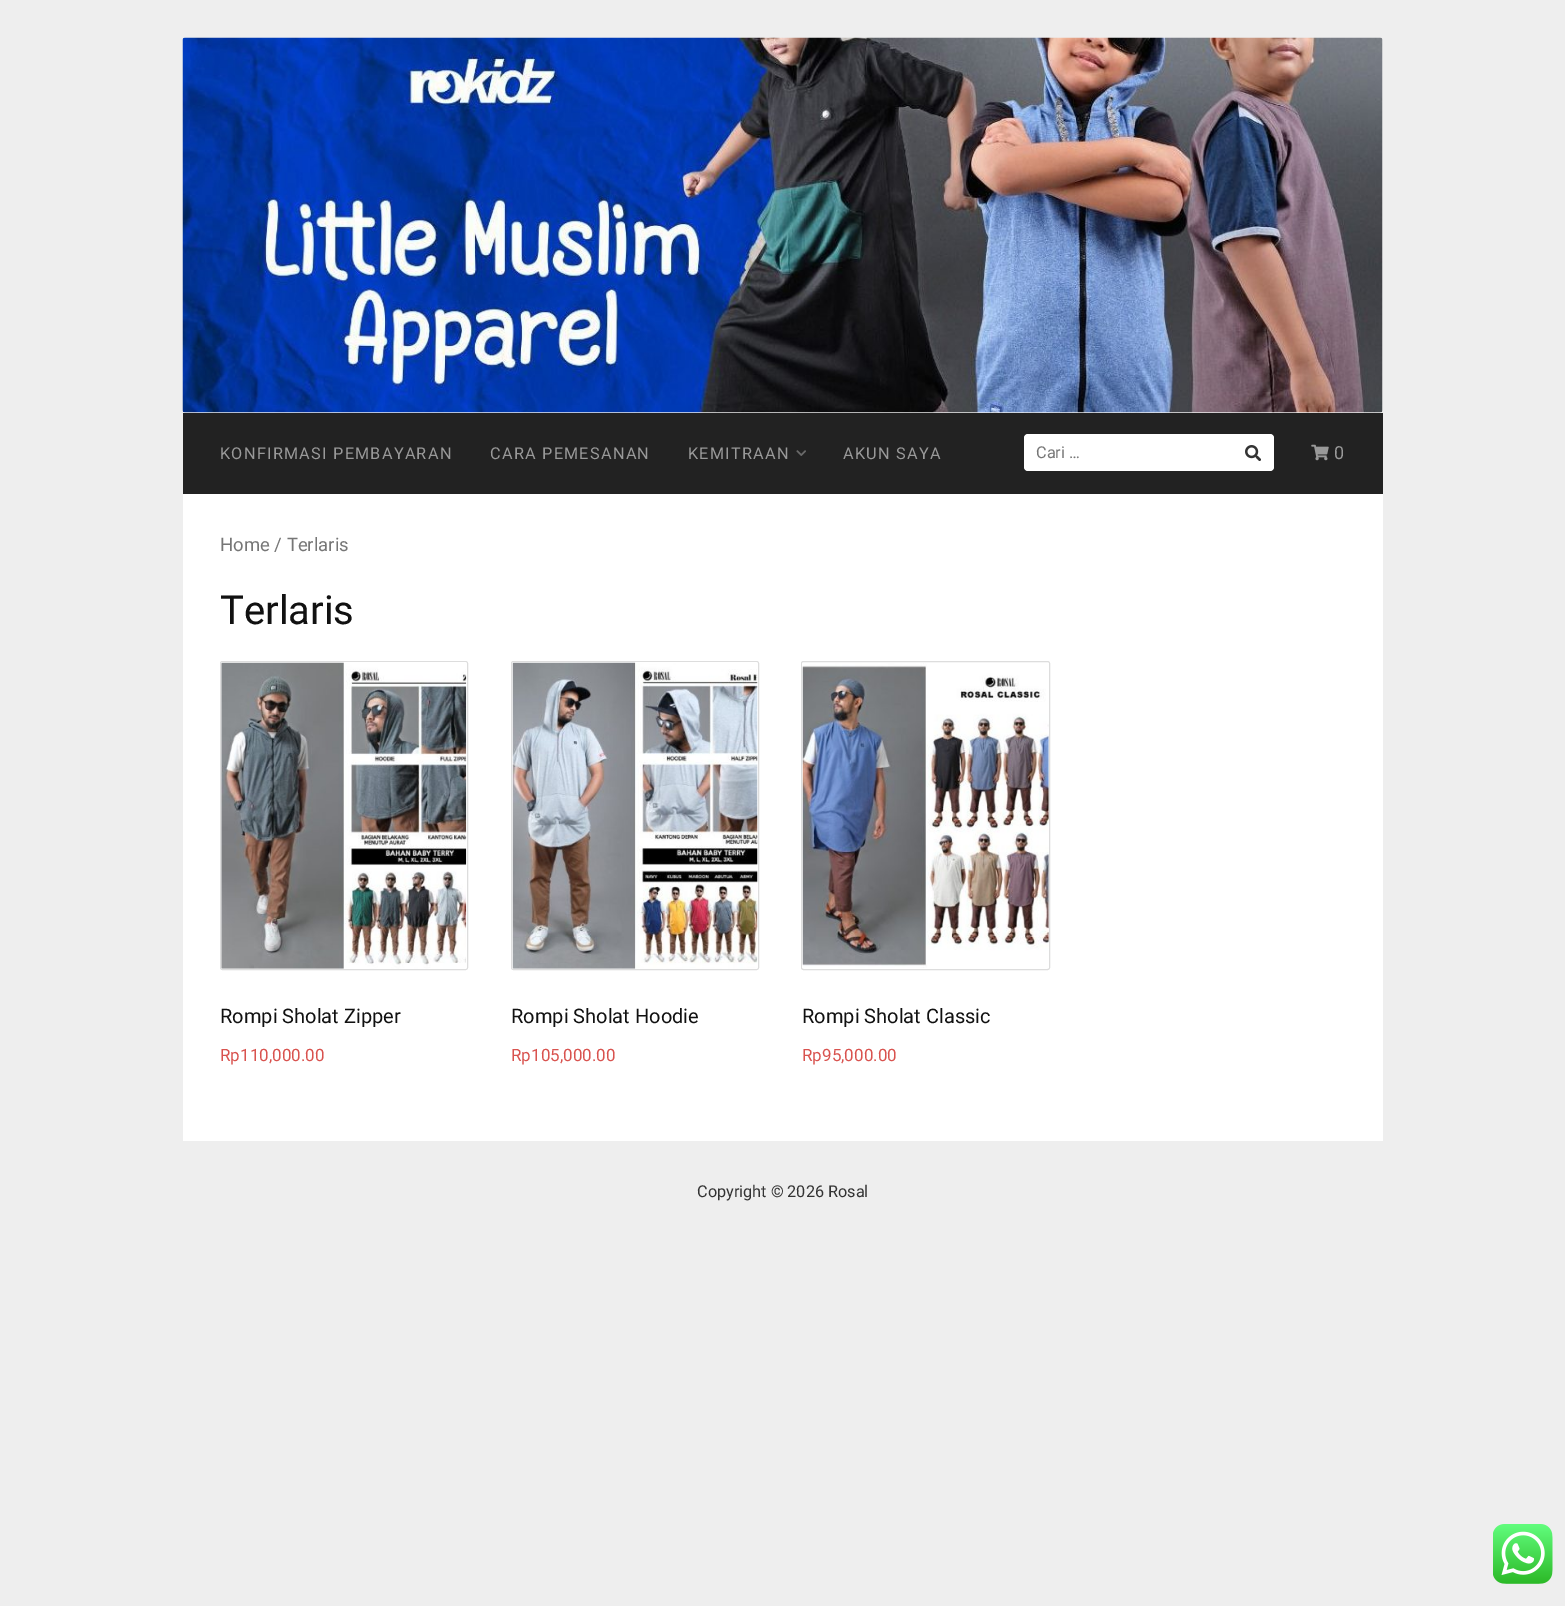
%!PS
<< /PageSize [1565 1606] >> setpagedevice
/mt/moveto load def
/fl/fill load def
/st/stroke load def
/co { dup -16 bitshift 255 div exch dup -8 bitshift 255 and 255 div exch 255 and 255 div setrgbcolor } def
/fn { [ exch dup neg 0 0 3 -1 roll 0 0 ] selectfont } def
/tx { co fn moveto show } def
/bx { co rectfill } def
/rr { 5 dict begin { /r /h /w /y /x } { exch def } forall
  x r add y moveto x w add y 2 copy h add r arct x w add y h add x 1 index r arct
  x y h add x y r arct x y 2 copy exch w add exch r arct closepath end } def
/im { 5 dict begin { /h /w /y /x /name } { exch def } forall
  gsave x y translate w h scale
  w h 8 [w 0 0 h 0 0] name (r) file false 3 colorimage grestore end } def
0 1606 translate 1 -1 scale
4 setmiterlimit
0 0 1565 1606 16#EEEEEE bx
(media/1.raw) 182 37 1201 376 im
183 494 1200 647 16#FFFFFF bx
183 413 1200 81 16#222222 bx
(media/2.raw) 796 450 10 6 im
16#FFFFFF co
1024 434 250 37 4 rr fl
(media/3.raw) 1245 445 16 16 im
(media/4.raw) 1311 444 18 17 im
16#DDDDDD co
220.5 661.5 247 308 2 rr st
(media/5.raw) 221 662 246 307 im
511.5 661.5 247 308 2 rr st
(media/6.raw) 512 662 246 307 im
801.5 661.5 248 308 2 rr st
(media/7.raw) 802 663 247 305 im
(media/8.raw) 1493 1524 60 60 im
/Roboto-Regular 16.25 fn
16#999999 co
220 459 mt 1.25 0 (KONFIRMASI PEMBAYARAN) ashow
490 459 mt 1.25 0 (CARA PEMESANAN) ashow
688 459 mt 1.25 0 (KEMITRAAN) ashow
843 459 mt 1.25 0 (AKUN SAYA) ashow
(Cari …) 1036 458 /Roboto-Regular 16.25 16#767676 tx
/Roboto-Regular 18 fn
16#999999 co
1334 459 mt 1.25 0 (0) ashow
(Home / Terlaris) 220 551 /Roboto-Regular 18.5 16#767676 tx
(Terlaris) 220 624 /Roboto-Regular 40 16#111111 tx
(Rompi Sholat Zipper) 220 1023 /Roboto-Regular 20 16#111111 tx
(Rp110,000.00) 220 1061 /Roboto-Regular 17 16#D9534F tx
(Rompi Sholat Hoodie) 511 1023 /Roboto-Regular 20 16#111111 tx
(Rp105,000.00) 511 1061 /Roboto-Regular 17 16#D9534F tx
(Rompi Sholat Classic) 802 1023 /Roboto-Regular 20 16#111111 tx
(Rp95,000.00) 802 1061 /Roboto-Regular 17 16#D9534F tx
(Copyright © 2026 Rosal) 697 1197 /Roboto-Regular 16.25 16#333333 tx
showpage
